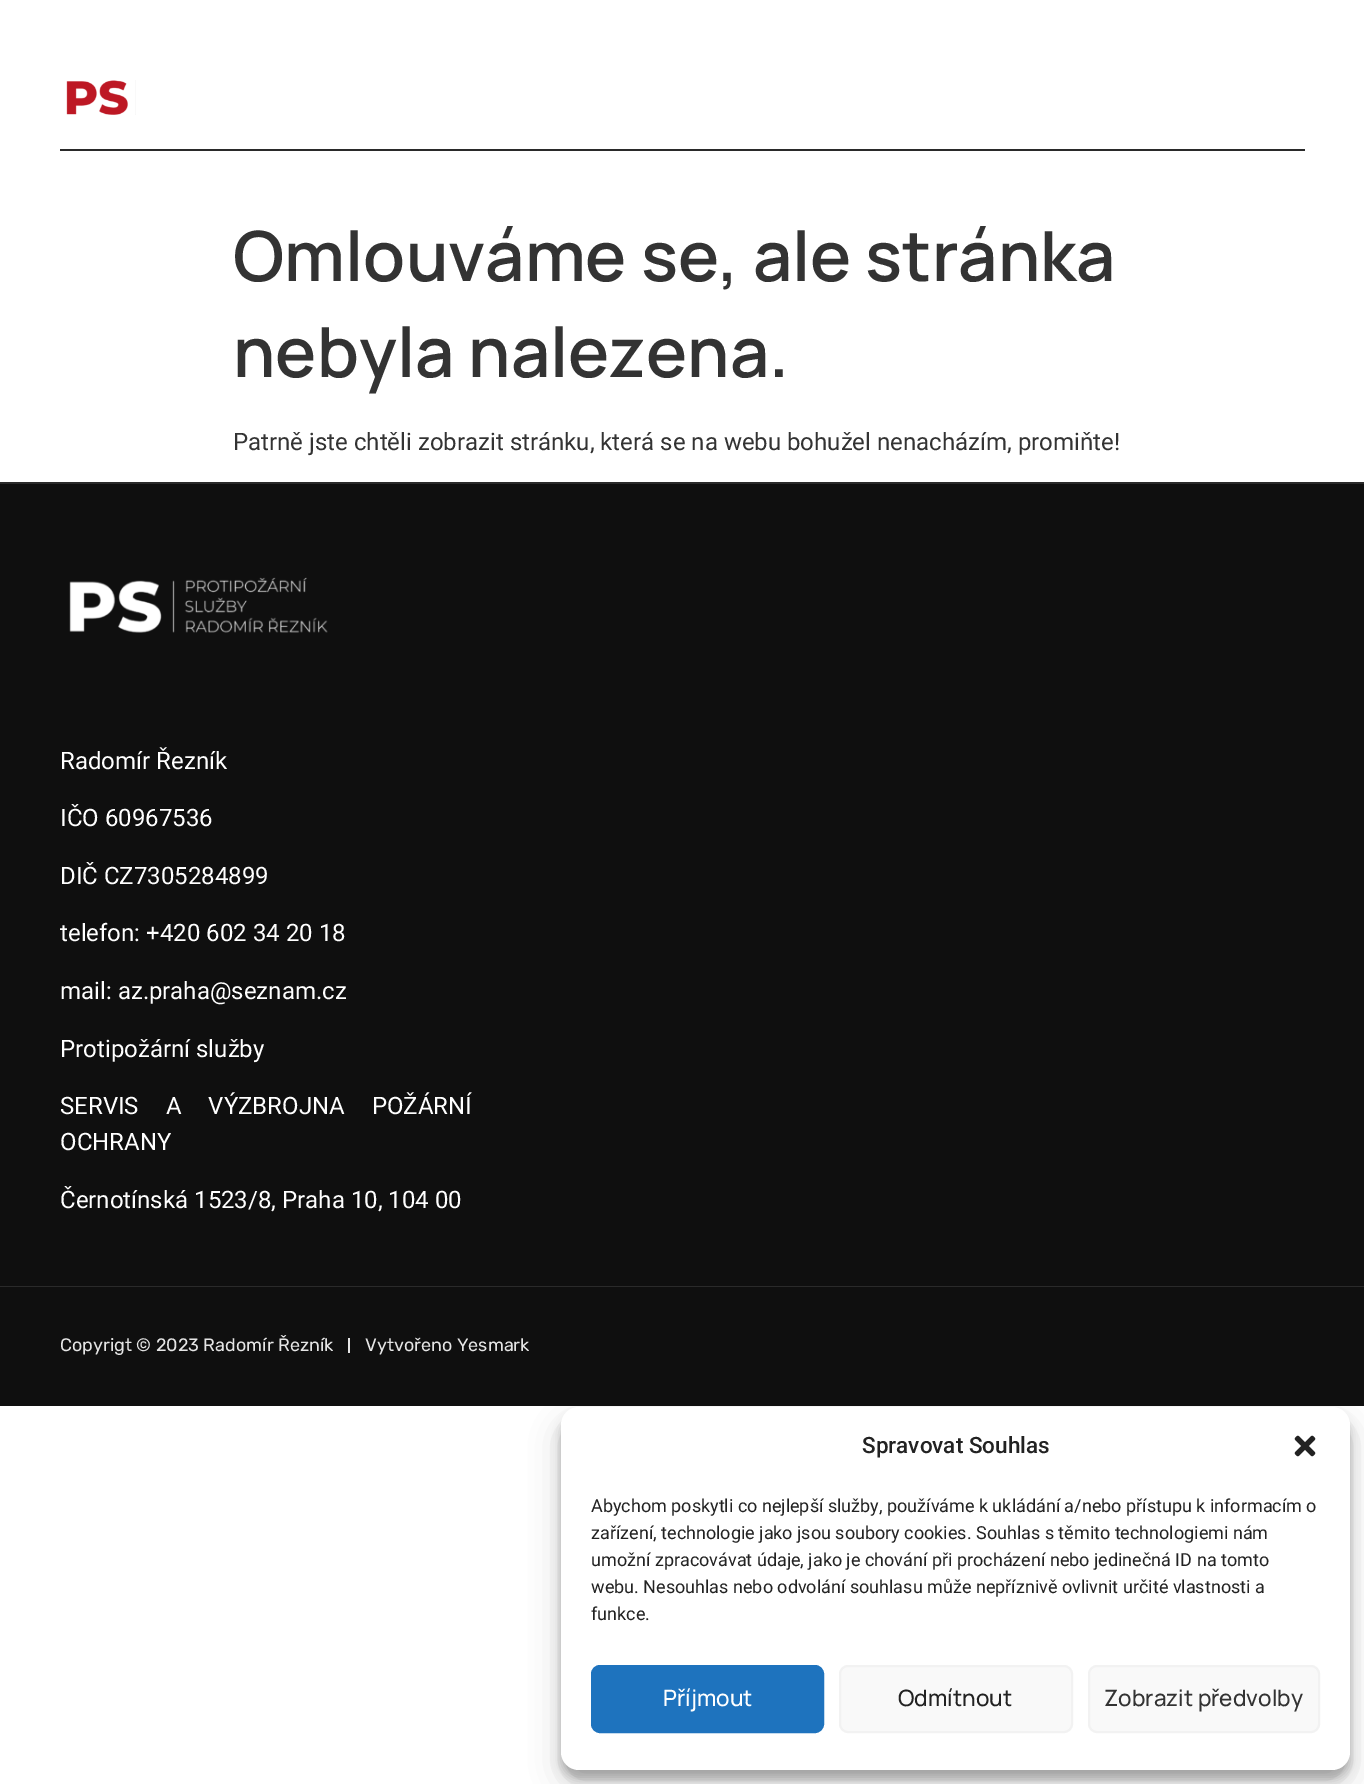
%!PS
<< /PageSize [1364 1784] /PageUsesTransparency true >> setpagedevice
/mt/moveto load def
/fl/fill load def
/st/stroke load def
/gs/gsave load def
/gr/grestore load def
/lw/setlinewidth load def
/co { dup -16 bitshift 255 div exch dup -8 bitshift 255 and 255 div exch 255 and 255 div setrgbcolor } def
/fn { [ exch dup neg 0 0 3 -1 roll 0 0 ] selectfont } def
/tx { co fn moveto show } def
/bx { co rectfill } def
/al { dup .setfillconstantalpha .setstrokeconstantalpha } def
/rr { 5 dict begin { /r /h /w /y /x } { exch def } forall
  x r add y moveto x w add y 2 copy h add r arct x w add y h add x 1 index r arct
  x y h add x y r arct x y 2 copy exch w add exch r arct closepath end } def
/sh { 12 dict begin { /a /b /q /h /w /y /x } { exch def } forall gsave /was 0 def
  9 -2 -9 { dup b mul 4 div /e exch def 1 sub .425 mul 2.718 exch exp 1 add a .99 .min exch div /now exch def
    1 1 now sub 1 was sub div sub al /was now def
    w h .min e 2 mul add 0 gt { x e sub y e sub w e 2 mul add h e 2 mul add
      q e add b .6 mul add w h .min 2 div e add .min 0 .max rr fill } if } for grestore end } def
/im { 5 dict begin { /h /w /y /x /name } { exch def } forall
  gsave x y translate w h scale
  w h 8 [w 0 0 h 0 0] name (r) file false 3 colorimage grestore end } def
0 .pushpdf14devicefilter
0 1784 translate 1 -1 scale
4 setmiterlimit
0 0 1364 1784 16#FFFFFF bx
60 149 1245 2 16#2A2A2A bx
(media/1.raw) 66 80 70 35 im
0 484 1364 802 16#0F0F0F bx
0 482 1364 2 16#2A2A2A bx
0 1286 1364 1 16#2A2A2A bx
(media/2.raw) 69 577 259 56 im
0 1287 1364 119 16#0F0F0F bx
348 1338 2 15 16#E5E5E5 bx
16#000000 co
561 1416 789 363 18 4.5 .23 sh
561 1422 789 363 18 15 .19 sh
16#FFFFFF co
561 1407 789 363 18 rr fl
(media/3.raw) 1294 1435 22 22 im
16#1E73BE co
592 1666 231 66 8 rr gs fl gr
2 lw
st
16#F9F9F9 co
840 1666 232 66 8 rr gs fl gr
16#F2F2F2 co
st
16#F9F9F9 co
1089 1666 230 66 8 rr gs fl gr
16#F2F2F2 co
st
(Omlouváme se, ale stránka) 233 281 /Manrope-SemiBold 69.1 16#333333 tx
(nebyla nalezena.) 233 377 /Manrope-SemiBold 69.1 16#333333 tx
(Patrně jste chtěli zobrazit stránku, která se na webu bohužel nenacházím, promiňte!) 233 450 /Roboto-Regular 24 16#333333 tx
(Radomír Řezník) 60 769 /Roboto-Regular 24 16#FFFFFF tx
(IČO 60967536) 60 826 /Roboto-Regular 24 16#FFFFFF tx
(DIČ CZ7305284899) 60 884 /Roboto-Regular 24 16#FFFFFF tx
(telefon: +420 602 34 20 18) 60 941 /Roboto-Regular 24 16#FFFFFF tx
(mail: az.praha@seznam.cz) 60 999 /Roboto-Regular 24 16#FFFFFF tx
(Protipožární služby) 60 1057 /Roboto-Regular 24 16#FFFFFF tx
60 1114 mt 21 0 32 (SERVIS A VÝZBROJNA POŽÁRNÍ) widthshow
(OCHRANY) 60 1150 /Roboto-Regular 24 16#FFFFFF tx
(Černotínská 1523/8, Praha 10, 104 00) 60 1208 /Roboto-Regular 24 16#FFFFFF tx
(Copyrigt © 2023 Radomír Řezník) 60 1351 /Rubik-Regular 18 16#E5E5E5 tx
(Vytvořeno Yesmark) 365 1351 /Rubik-Regular 18 16#E5E5E5 tx
(Spravovat Souhlas) 862 1453 /Roboto-Medium 22.5 16#222222 tx
(Abychom poskytli co nejlepší služby, používáme k ukládání a/nebo přístupu k informacím o) 591 1512 /Roboto-Regular 18 16#222222 tx
(zařízení, technologie jako jsou soubory cookies. Souhlas s těmito technologiemi nám) 591 1539 /Roboto-Regular 18 16#222222 tx
(umožní zpracovávat údaje, jako je chování při procházení nebo jedinečná ID na tomto) 591 1566 /Roboto-Regular 18 16#222222 tx
(webu. Nesouhlas nebo odvolání souhlasu může nepříznivě ovlivnit určité vlastnosti a) 591 1593 /Roboto-Regular 18 16#222222 tx
(funkce.) 591 1620 /Roboto-Regular 18 16#222222 tx
(Příjmout) 663 1706 /Manrope-Medium 22.5 16#FFFFFF tx
(Odmítnout) 898 1706 /Manrope-Medium 22.5 16#222222 tx
(Zobrazit předvolby) 1104 1706 /Manrope-Medium 22.5 16#333333 tx
.poppdf14devicefilter showpage
